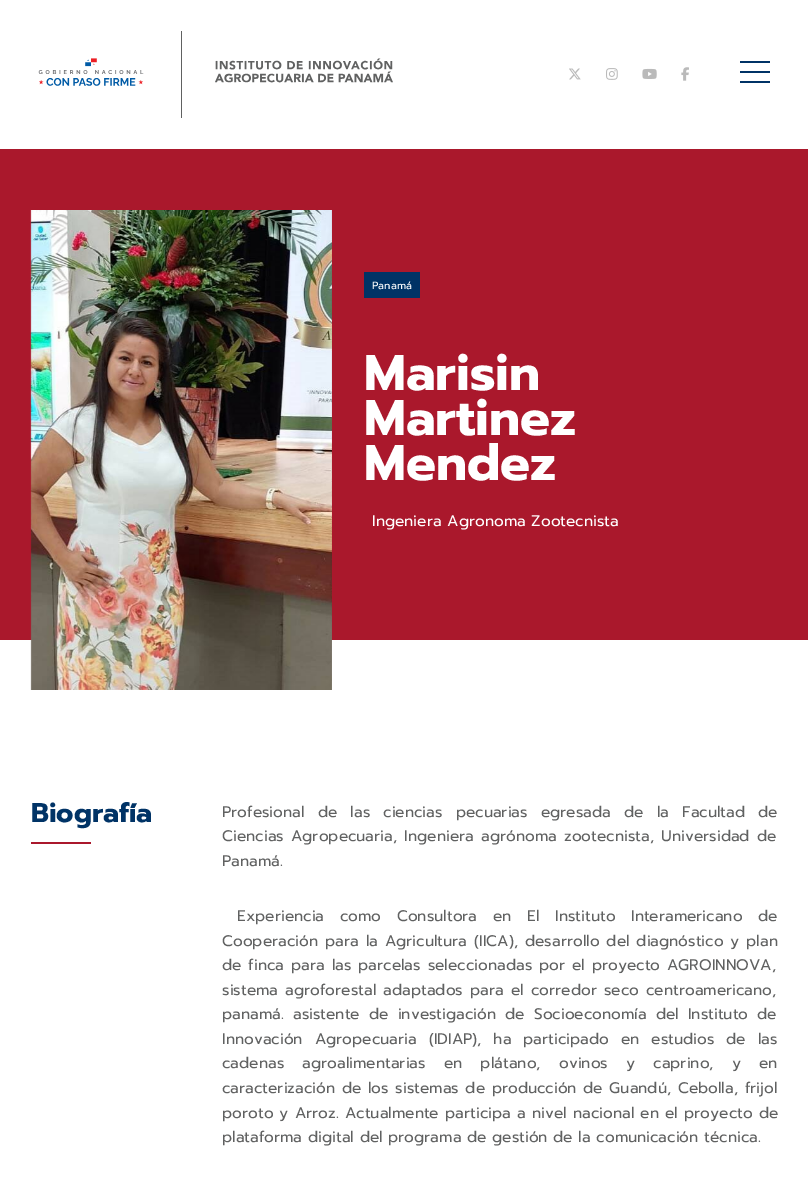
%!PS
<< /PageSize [808 1180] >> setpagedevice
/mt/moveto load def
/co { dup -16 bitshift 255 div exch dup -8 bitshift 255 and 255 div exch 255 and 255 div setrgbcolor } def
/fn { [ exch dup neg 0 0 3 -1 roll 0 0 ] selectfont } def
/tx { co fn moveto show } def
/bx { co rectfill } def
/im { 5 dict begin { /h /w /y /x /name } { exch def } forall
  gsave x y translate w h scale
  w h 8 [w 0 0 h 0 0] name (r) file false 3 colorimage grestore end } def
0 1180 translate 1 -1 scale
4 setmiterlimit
0 0 808 1180 16#FFFFFF bx
181 31 1 87 16#606161 bx
(media/1.raw) 38 58 106 28 im
(media/2.raw) 215 58 178 25 im
(media/3.raw) 569 68 12 12 im
(media/4.raw) 606 68 12 12 im
(media/5.raw) 642 68 15 11 im
(media/6.raw) 681 67 8 14 im
740 71 30 2 16#003366 bx
740 61 30 2 16#003366 bx
740 81 30 2 16#003366 bx
0 149 808 491 16#AA182C bx
(media/7.raw) 30 210 302 480 im
364 272 56 26 16#003366 bx
31 842 60 2 16#AA182C bx
(Panamá) 372 289 /Prompt-Regular 10.5 16#FFFFFF tx
(Marisin) 364 390 /Prompt-Bold 50 16#FFFFFF tx
(Martinez) 364 435 /Prompt-Bold 50 16#FFFFFF tx
(Mendez) 364 480 /Prompt-Bold 50 16#FFFFFF tx
(Ingeniera Agronoma Zootecnista) 372 526 /Prompt-Regular 15.35 16#FFFFFF tx
(Biografía) 31 822 /Prompt-Bold 27 16#003366 tx
/Prompt-Regular 15.35 fn
16#606161 co
222 817 mt 7.5 0 32 (Profesional de las ciencias pecuarias egresada de la Facultad de) widthshow
222 841 mt 1.5 0 32 (Ciencias Agropecuaria, Ingeniera agrónoma zootecnista, Universidad de) widthshow
(Panamá.) 222 866 /Prompt-Regular 15.35 16#606161 tx
237 921 mt 10 0 32 (Experiencia como Consultora en El Instituto Interamericano de) widthshow
222 946 mt 1.25 0 32 (Cooperación para la Agricultura \(IICA\), desarrollo del diagnóstico y plan) widthshow
222 970 mt 1.25 0 32 (de finca para las parcelas seleccionadas por el proyecto AGROINNOVA,) widthshow
222 995 mt 1.5 0 32 (sistema agroforestal adaptados para el corredor seco centroamericano,) widthshow
222 1019 mt 3.5 0 32 (panamá. asistente de investigación de Socioeconomía del Instituto de) widthshow
222 1044 mt 6.25 0 32 (Innovación Agropecuaria \(IDIAP\), ha participado en estudios de las) widthshow
222 1068 mt 12.5 0 32 (cadenas agroalimentarias en plátano, ovinos y caprino, y en) widthshow
222 1093 mt 1 0 32 (caracterización de los sistemas de producción de Guandú, Cebolla, frijol) widthshow
222 1118 mt .5 0 32 (poroto y Arroz. Actualmente participa a nivel nacional en el proyecto de) widthshow
(plataforma digital del programa de gestión de la comunicación técnica.) 222 1142 /Prompt-Regular 15.35 16#606161 tx
showpage
